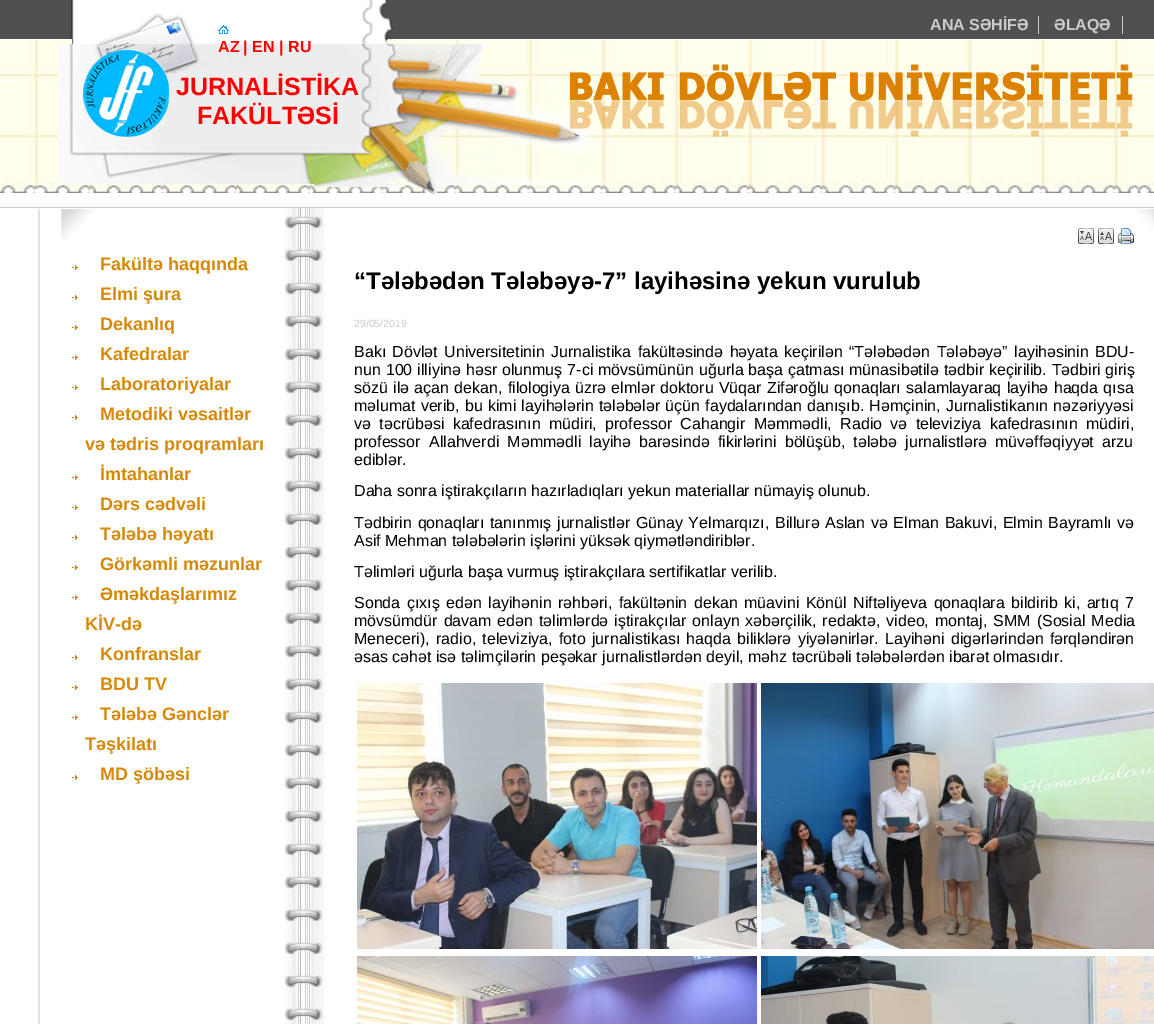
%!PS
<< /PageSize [1154 1024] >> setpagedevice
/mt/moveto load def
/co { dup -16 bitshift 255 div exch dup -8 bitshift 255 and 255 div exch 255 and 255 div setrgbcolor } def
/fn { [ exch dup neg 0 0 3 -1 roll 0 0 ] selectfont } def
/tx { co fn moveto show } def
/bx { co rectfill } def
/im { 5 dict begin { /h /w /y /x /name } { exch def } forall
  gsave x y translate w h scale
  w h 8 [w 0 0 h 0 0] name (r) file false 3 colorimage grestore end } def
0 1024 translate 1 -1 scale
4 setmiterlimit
0 0 1154 1024 16#FFFFFF bx
(media/1.raw) 0 0 1154 208 im
(media/2.raw) 38 0 1100 195 im
1038 16 1 18 16#CCCCCC bx
1122 16 1 18 16#CCCCCC bx
(media/3.raw) 218 25 11 9 im
(media/4.raw) 61 209 1093 32 im
38 209 2 815 16#E1E1E1 bx
(media/5.raw) 72 265 6 5 im
(media/5.raw) 72 295 6 5 im
(media/5.raw) 72 325 6 5 im
(media/5.raw) 72 355 6 5 im
(media/5.raw) 72 385 6 5 im
(media/5.raw) 72 415 6 5 im
(media/5.raw) 72 475 6 5 im
(media/5.raw) 72 505 6 5 im
(media/5.raw) 72 535 6 5 im
(media/5.raw) 72 565 6 5 im
(media/5.raw) 72 595 6 5 im
(media/5.raw) 72 655 6 5 im
(media/5.raw) 72 685 6 5 im
(media/5.raw) 72 715 6 5 im
(media/5.raw) 72 775 6 5 im
(media/6.raw) 284 208 41 816 im
(media/7.raw) 1078 228 16 16 im
(media/8.raw) 1098 228 16 16 im
(media/9.raw) 1118 228 16 16 im
(media/10.raw) 357 683 400 266 im
(media/11.raw) 761 683 393 266 im
(media/12.raw) 357 956 400 68 im
(media/13.raw) 761 956 393 68 im
(ANA SƏHİFƏ) 930 30 /LiberationSans-Bold 16 16#CCCCCC tx
(ƏLAQƏ) 1054 30 /LiberationSans-Bold 16 16#CCCCCC tx
(AZ) 218 52 /LiberationSans-Bold 16 16#FF0000 tx
(|) 243 52 /LiberationSans-Bold 16 16#FF0000 tx
(EN) 252 52 /LiberationSans-Bold 16 16#FF0000 tx
(|) 279 52 /LiberationSans-Bold 16 16#FF0000 tx
(RU) 288 52 /LiberationSans-Bold 16 16#FF0000 tx
(JURNALİSTİKA) 176 95 /LiberationSans-Bold 25 16#FF0000 tx
(FAKÜLTƏSİ) 197 124 /LiberationSans-Bold 25 16#FF0000 tx
(Fakültə haqqında) 100 270 /LiberationSans-Bold 18 16#D78807 tx
(Elmi şura) 100 300 /LiberationSans-Bold 18 16#D78807 tx
(Dekanlıq) 100 330 /LiberationSans-Bold 18 16#D78807 tx
(Kafedralar) 100 360 /LiberationSans-Bold 18 16#D78807 tx
(Laboratoriyalar) 100 390 /LiberationSans-Bold 18 16#D78807 tx
(Metodiki vəsaitlər) 100 420 /LiberationSans-Bold 18 16#D78807 tx
(və tədris proqramları) 85 450 /LiberationSans-Bold 18 16#D78807 tx
(İmtahanlar) 100 480 /LiberationSans-Bold 18 16#D78807 tx
(Dərs cədvəli) 100 510 /LiberationSans-Bold 18 16#D78807 tx
(Tələbə həyatı) 100 540 /LiberationSans-Bold 18 16#D78807 tx
(Görkəmli məzunlar) 100 570 /LiberationSans-Bold 18 16#D78807 tx
(Əməkdaşlarımız) 100 600 /LiberationSans-Bold 18 16#D78807 tx
(KİV-də) 85 630 /LiberationSans-Bold 18 16#D78807 tx
(Konfranslar) 100 660 /LiberationSans-Bold 18 16#D78807 tx
(BDU TV) 100 690 /LiberationSans-Bold 18 16#D78807 tx
(Tələbə Gənclər) 100 720 /LiberationSans-Bold 18 16#D78807 tx
(Təşkilatı) 85 750 /LiberationSans-Bold 18 16#D78807 tx
(MD şöbəsi) 100 780 /LiberationSans-Bold 18 16#D78807 tx
(“Tələbədən Tələbəyə-7” layihəsinə yekun vurulub) 354 289 /LiberationSans-Bold 24 16#000000 tx
(29/05/2019) 354 327 /LiberationSans-Regular 10.5 16#CCCCCC tx
/LiberationSans-Regular 16 fn
16#000000 co
354 357 mt 2 0 32 (Bakı Dövlət Universitetinin Jurnalistika fakültəsində həyata keçirilən “Tələbədən Tələbəyə” layihəsinin BDU-) widthshow
354 375 mt .5 0 32 (nun 100 illiyinə həsr olunmuş 7-ci mövsümünün uğurla başa çatması münasibətilə tədbir keçirilib. Tədbiri giriş) widthshow
354 393 mt .8 0 32 (sözü ilə açan dekan, filologiya üzrə elmlər doktoru Vüqar Zifəroğlu qonaqları salamlayaraq layihə haqda qısa) widthshow
354 411 mt .75 0 32 (məlumat verib, bu kimi layihələrin tələbələr üçün faydalarından danışıb. Həmçinin, Jurnalistikanın nəzəriyyəsi) widthshow
354 429 mt 3.9 0 32 (və təcrübəsi kafedrasının müdiri, professor Cahangir Məmmədli, Radio və televiziya kafedrasının müdiri,) widthshow
354 447 mt 3.75 0 32 (professor Allahverdi Məmmədli layihə barəsində fikirlərini bölüşüb, tələbə jurnalistlərə müvəffəqiyyət arzu) widthshow
(ediblər.) 354 465 /LiberationSans-Regular 16 16#000000 tx
(Daha sonra iştirakçıların hazırladıqları yekun materiallar nümayiş olunub.) 354 496 /LiberationSans-Regular 16 16#000000 tx
354 528 mt 1.25 0 32 (Tədbirin qonaqları tanınmış jurnalistlər Günay Yelmarqızı, Billurə Aslan və Elman Bakuvi, Elmin Bayramlı və) widthshow
(Asif Mehman tələbələrin işlərini yüksək qiymətləndiriblər.) 354 546 /LiberationSans-Regular 16 16#000000 tx
(Təlimləri uğurla başa vurmuş iştirakçılara sertifikatlar verilib.) 354 577 /LiberationSans-Regular 16 16#000000 tx
354 608 mt 2.1 0 32 (Sonda çıxış edən layihənin rəhbəri, fakültənin dekan müavini Könül Niftəliyeva qonaqlara bildirib ki, artıq 7) widthshow
354 626 mt 1.5 0 32 (mövsümdür davam edən təlimlərdə iştirakçılar onlayn xəbərçilik, redaktə, video, montaj, SMM \(Sosial Media) widthshow
354 644 mt 1.9 0 32 (Meneceri\), radio, televiziya, foto jurnalistikası haqda biliklərə yiyələnirlər. Layihəni digərlərindən fərqləndirən) widthshow
(əsas cəhət isə təlimçilərin peşəkar jurnalistlərdən deyil, məhz təcrübəli tələbələrdən ibarət olmasıdır.) 354 662 /LiberationSans-Regular 16 16#000000 tx
showpage
